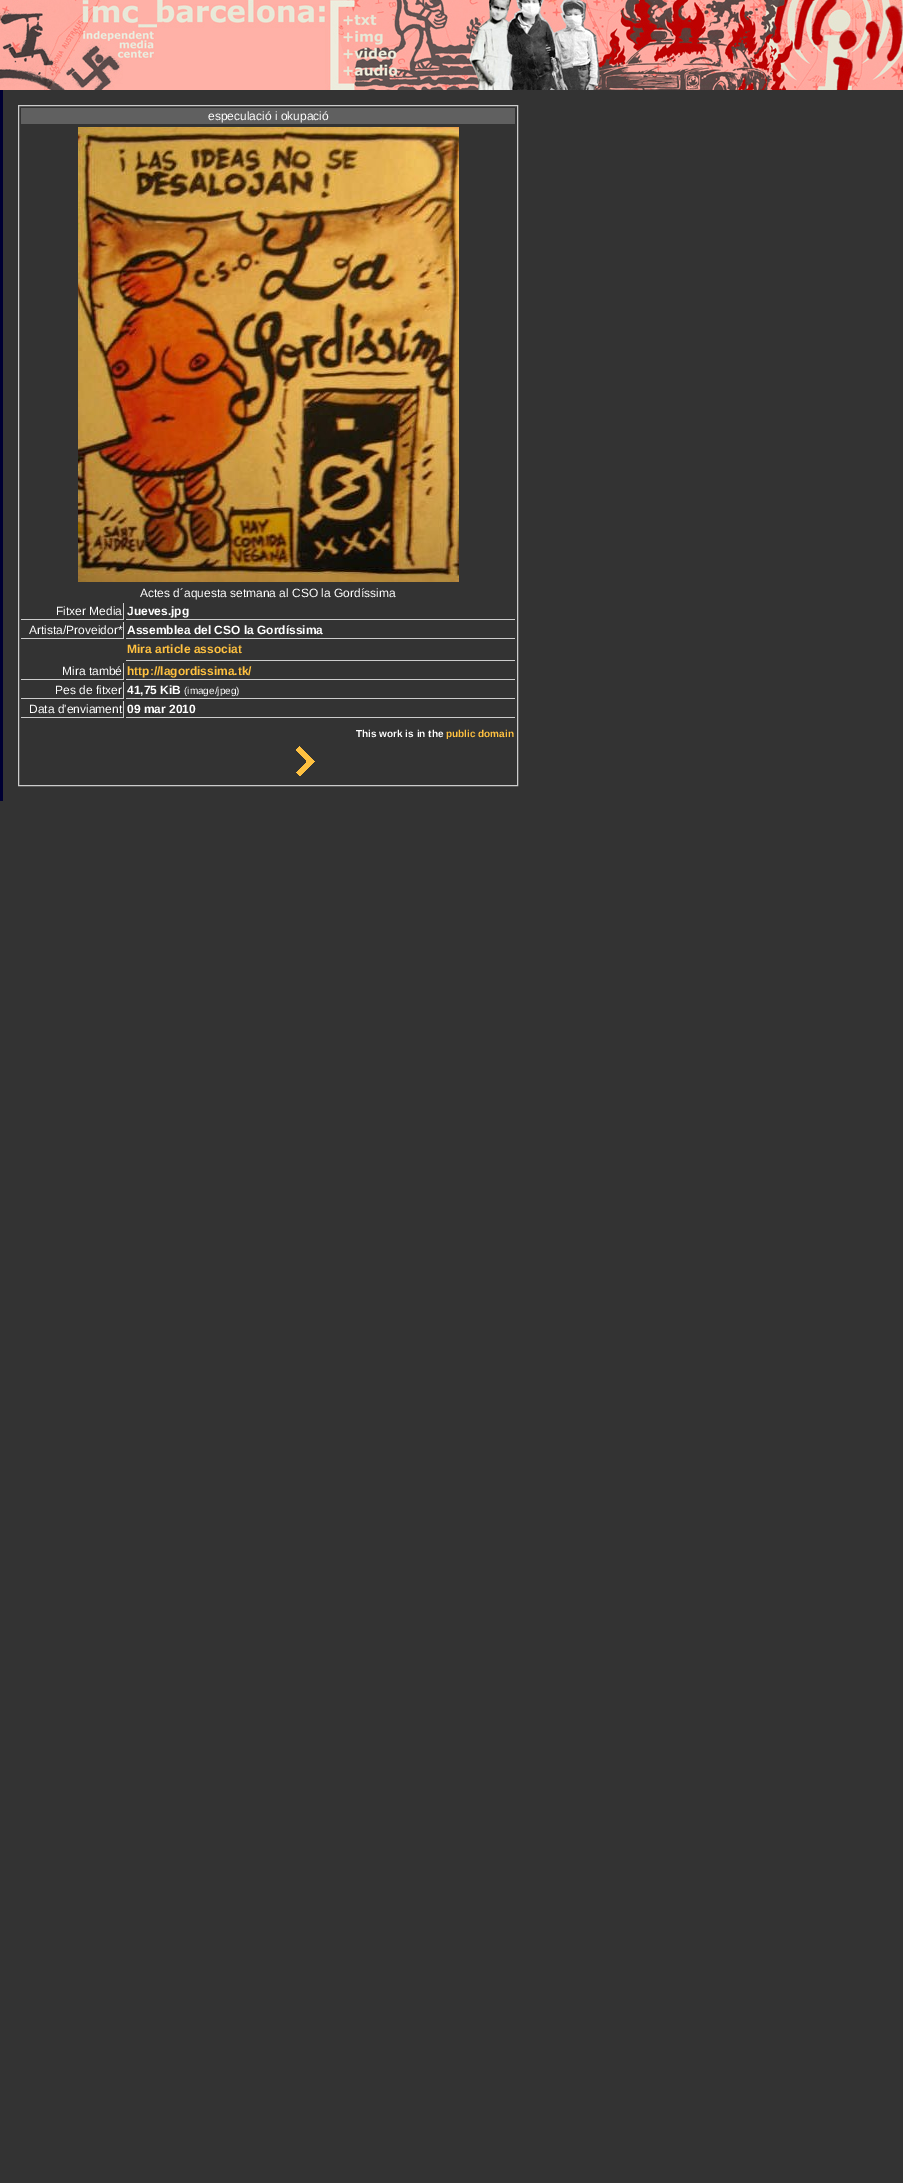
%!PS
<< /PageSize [903 2183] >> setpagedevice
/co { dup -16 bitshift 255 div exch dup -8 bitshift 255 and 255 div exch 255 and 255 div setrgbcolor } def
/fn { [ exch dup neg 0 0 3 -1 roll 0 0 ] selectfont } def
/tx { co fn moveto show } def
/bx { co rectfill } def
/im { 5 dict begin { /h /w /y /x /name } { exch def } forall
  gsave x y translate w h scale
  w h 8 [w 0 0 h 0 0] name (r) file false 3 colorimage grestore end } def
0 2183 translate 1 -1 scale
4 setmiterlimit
0 0 903 2183 16#333333 bx
(media/1.raw) 0 0 157 90 im
(media/2.raw) 157 0 746 90 im
0 90 3 711 16#000033 bx
16#CCCCCC co
18.5 105.5 499 680 rectstroke
21 108 494 16 16#606060 bx
(media/3.raw) 78 127 381 455 im
123 603 1 17 16#CCCCCC bx
21 619 103 1 16#CCCCCC bx
126 619 389 1 16#CCCCCC bx
123 622 1 17 16#CCCCCC bx
21 638 103 1 16#CCCCCC bx
126 638 389 1 16#CCCCCC bx
126 660 389 1 16#CCCCCC bx
123 663 1 17 16#CCCCCC bx
21 679 103 1 16#CCCCCC bx
126 679 389 1 16#CCCCCC bx
123 682 1 17 16#CCCCCC bx
21 698 103 1 16#CCCCCC bx
126 698 389 1 16#CCCCCC bx
123 701 1 17 16#CCCCCC bx
21 717 103 1 16#CCCCCC bx
126 717 389 1 16#CCCCCC bx
(media/4.raw) 296 746 19 30 im
(especulació i okupació) 208 120 /LiberationSans-Regular 12 16#FFFFFF tx
(Actes d´aquesta setmana al CSO la Gordíssima) 140 597 /LiberationSans-Regular 12 16#FFFFFF tx
(Fitxer Media) 56 615 /LiberationSans-Regular 12 16#FFFFFF tx
(Jueves.jpg) 127 615 /LiberationSans-Bold 12 16#FFFFFF tx
(Artista/Proveidor*) 29 634 /LiberationSans-Regular 12 16#FFFFFF tx
(Assemblea del CSO la Gordíssima) 127 634 /LiberationSans-Bold 12 16#FFFFFF tx
(Mira article associat) 127 653 /LiberationSans-Bold 12 16#FFC140 tx
(Mira també) 62 675 /LiberationSans-Regular 12 16#FFFFFF tx
(http://lagordissima.tk/) 127 675 /LiberationSans-Bold 12 16#FFC140 tx
(Pes de fitxer) 55 694 /LiberationSans-Regular 12 16#FFFFFF tx
(41,75 KiB) 127 694 /LiberationSans-Bold 12 16#FFFFFF tx
(\(image/jpeg\)) 184 694 /LiberationSans-Regular 10 16#FFFFFF tx
(Data d'enviament) 29 713 /LiberationSans-Regular 12 16#FFFFFF tx
(09 mar 2010) 127 713 /LiberationSans-Bold 12 16#FFFFFF tx
(This work is in the) 356 737 /LiberationSans-Bold 10 16#FFFFFF tx
(public domain) 446 737 /LiberationSans-Bold 10 16#FFC140 tx
showpage
